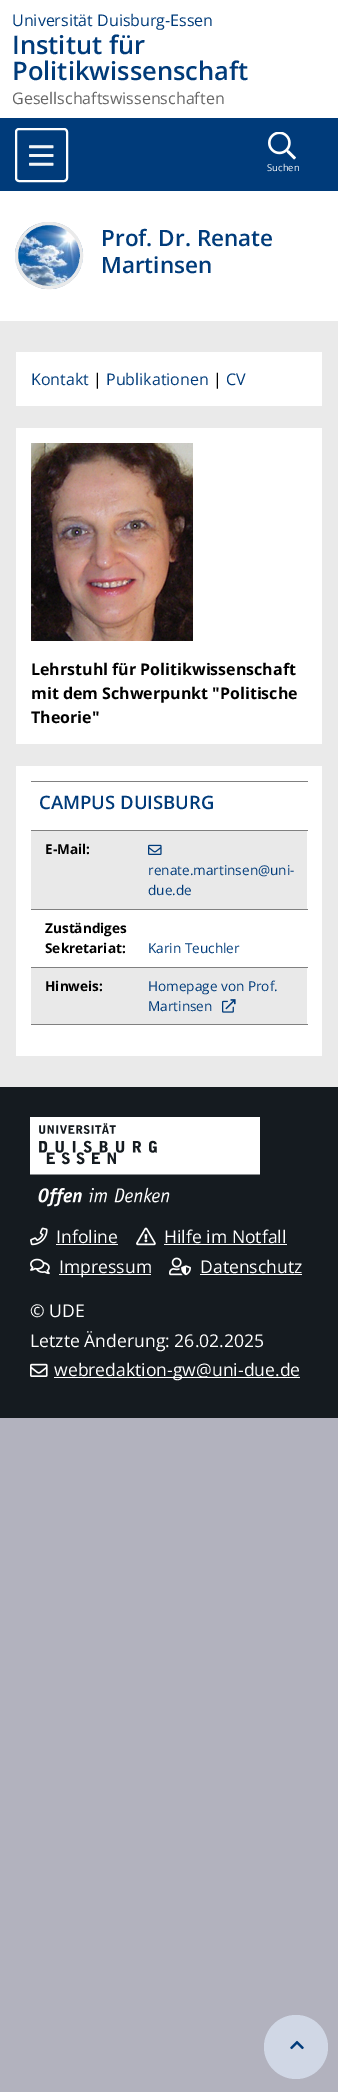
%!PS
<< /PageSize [338 2092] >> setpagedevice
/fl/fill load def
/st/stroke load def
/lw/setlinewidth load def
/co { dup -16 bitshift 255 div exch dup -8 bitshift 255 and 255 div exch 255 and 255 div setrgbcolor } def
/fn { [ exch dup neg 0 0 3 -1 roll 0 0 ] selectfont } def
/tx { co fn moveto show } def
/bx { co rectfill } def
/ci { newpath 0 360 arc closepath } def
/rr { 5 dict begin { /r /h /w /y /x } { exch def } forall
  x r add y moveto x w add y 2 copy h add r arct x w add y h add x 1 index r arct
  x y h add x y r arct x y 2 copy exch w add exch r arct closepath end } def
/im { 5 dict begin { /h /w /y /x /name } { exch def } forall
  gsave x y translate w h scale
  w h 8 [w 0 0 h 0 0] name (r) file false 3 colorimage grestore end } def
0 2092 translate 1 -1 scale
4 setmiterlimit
0 0 338 2092 16#B2B2BE bx
0 0 338 321 16#FFFFFF bx
0 118 338 73 16#003B7A bx
16#FFFFFF co
2 lw
16 129 51 52 3 rr st
(media/1.raw) 29 145 25 21 im
(media/2.raw) 268 132 28 28 im
(media/3.raw) 15 222 68 67 im
16#EAEAEA co
3 lw
16.5 223.5 65 64 32 rr st
0 321 338 766 16#EAEAEA bx
16 352 306 54 16#FFFFFF bx
16 428 306 316 16#FFFFFF bx
(media/4.raw) 31 443 162 198 im
16 766 306 290 16#FFFFFF bx
31 781 277 1 16#808080 bx
31 831 276 78 16#E9E9E9 bx
31 830 277 1 16#808080 bx
(media/5.raw) 148 844 14 11 im
31 909 277 1 16#808080 bx
31 968 276 56 16#E9E9E9 bx
31 967 277 1 16#808080 bx
31 1024 277 1 16#808080 bx
(media/6.raw) 222 999 14 14 im
16#D0D7E5 co
296 2047 32 ci fl
(media/7.raw) 290 2040 14 10 im
0 1087 338 331 16#151B20 bx
(media/8.raw) 30 1117 230 90 im
(media/9.raw) 30 1227 18 19 im
56 1244 62 1 16#FFFFFF bx
(media/10.raw) 136 1227 20 19 im
164 1244 123 1 16#FFFFFF bx
(media/11.raw) 30 1258 20 17 im
59 1274 92 1 16#FFFFFF bx
(media/12.raw) 169 1257 22 19 im
200 1274 102 1 16#FFFFFF bx
(media/13.raw) 30 1363 18 14 im
54 1377 246 1 16#FFFFFF bx
(Universität Duisburg-Essen) 12 26 /OpenSans-Regular 16 16#003B7A tx
(Institut für) 12 54 /OpenSans-SemiBold 25.5 16#003B7A tx
(Politikwissenschaft) 12 80 /OpenSans-SemiBold 25.5 16#003B7A tx
(Gesellschaftswissenschaften) 12 104 /OpenSans-Regular 16 16#666666 tx
(Suchen) 267 171 /OpenSans-Regular 9.5 16#FFFFFF tx
(Prof. Dr. Renate) 101 246 /OpenSans-SemiBold 22.5 16#003B7A tx
(Martinsen) 101 273 /OpenSans-SemiBold 22.5 16#003B7A tx
(Kontakt) 31 385 /OpenSans-Regular 16 16#003B7A tx
(|) 93 385 /OpenSans-Regular 16 16#000000 tx
(Publikationen) 106 385 /OpenSans-Regular 16 16#003B7A tx
(|) 213 385 /OpenSans-Regular 16 16#000000 tx
(CV) 226 385 /OpenSans-Regular 16 16#003B7A tx
(Lehrstuhl für Politikwissenschaft) 31 675 /OpenSans-Bold 16 16#000000 tx
(mit dem Schwerpunkt "Politische) 31 699 /OpenSans-Bold 16 16#000000 tx
(Theorie") 31 723 /OpenSans-Bold 16 16#000000 tx
(CAMPUS DUISBURG) 39 809 /OpenSans-SemiBold 18.5 16#003B7A tx
(E-Mail:) 45 854 /OpenSans-Bold 13.6 16#000000 tx
(renate.martinsen@uni-) 148 875 /OpenSans-Regular 13.6 16#003B7A tx
(due.de) 148 895 /OpenSans-Regular 13.6 16#003B7A tx
(Zuständiges) 45 933 /OpenSans-Bold 13.6 16#000000 tx
(Sekretariat:) 45 953 /OpenSans-Bold 13.6 16#000000 tx
(Karin Teuchler) 148 953 /OpenSans-Regular 13.6 16#003B7A tx
(Hinweis:) 45 991 /OpenSans-Bold 13.6 16#000000 tx
(Homepage von Prof.) 148 991 /OpenSans-Regular 13.6 16#003B7A tx
(Martinsen) 148 1011 /OpenSans-Regular 13.6 16#003B7A tx
(Infoline) 56 1243 /OpenSans-Regular 17.6 16#FFFFFF tx
(Hilfe im Notfall) 164 1243 /OpenSans-Regular 17.6 16#FFFFFF tx
(Impressum) 59 1273 /OpenSans-Regular 17.6 16#FFFFFF tx
(Datenschutz) 200 1273 /OpenSans-Regular 17.6 16#FFFFFF tx
(© UDE) 30 1317 /OpenSans-Regular 17.6 16#FFFFFF tx
(Letzte Änderung: 26.02.2025) 30 1347 /OpenSans-Regular 17.6 16#FFFFFF tx
(webredaktion-gw@uni-due.de) 54 1376 /OpenSans-Regular 17.6 16#FFFFFF tx
showpage
